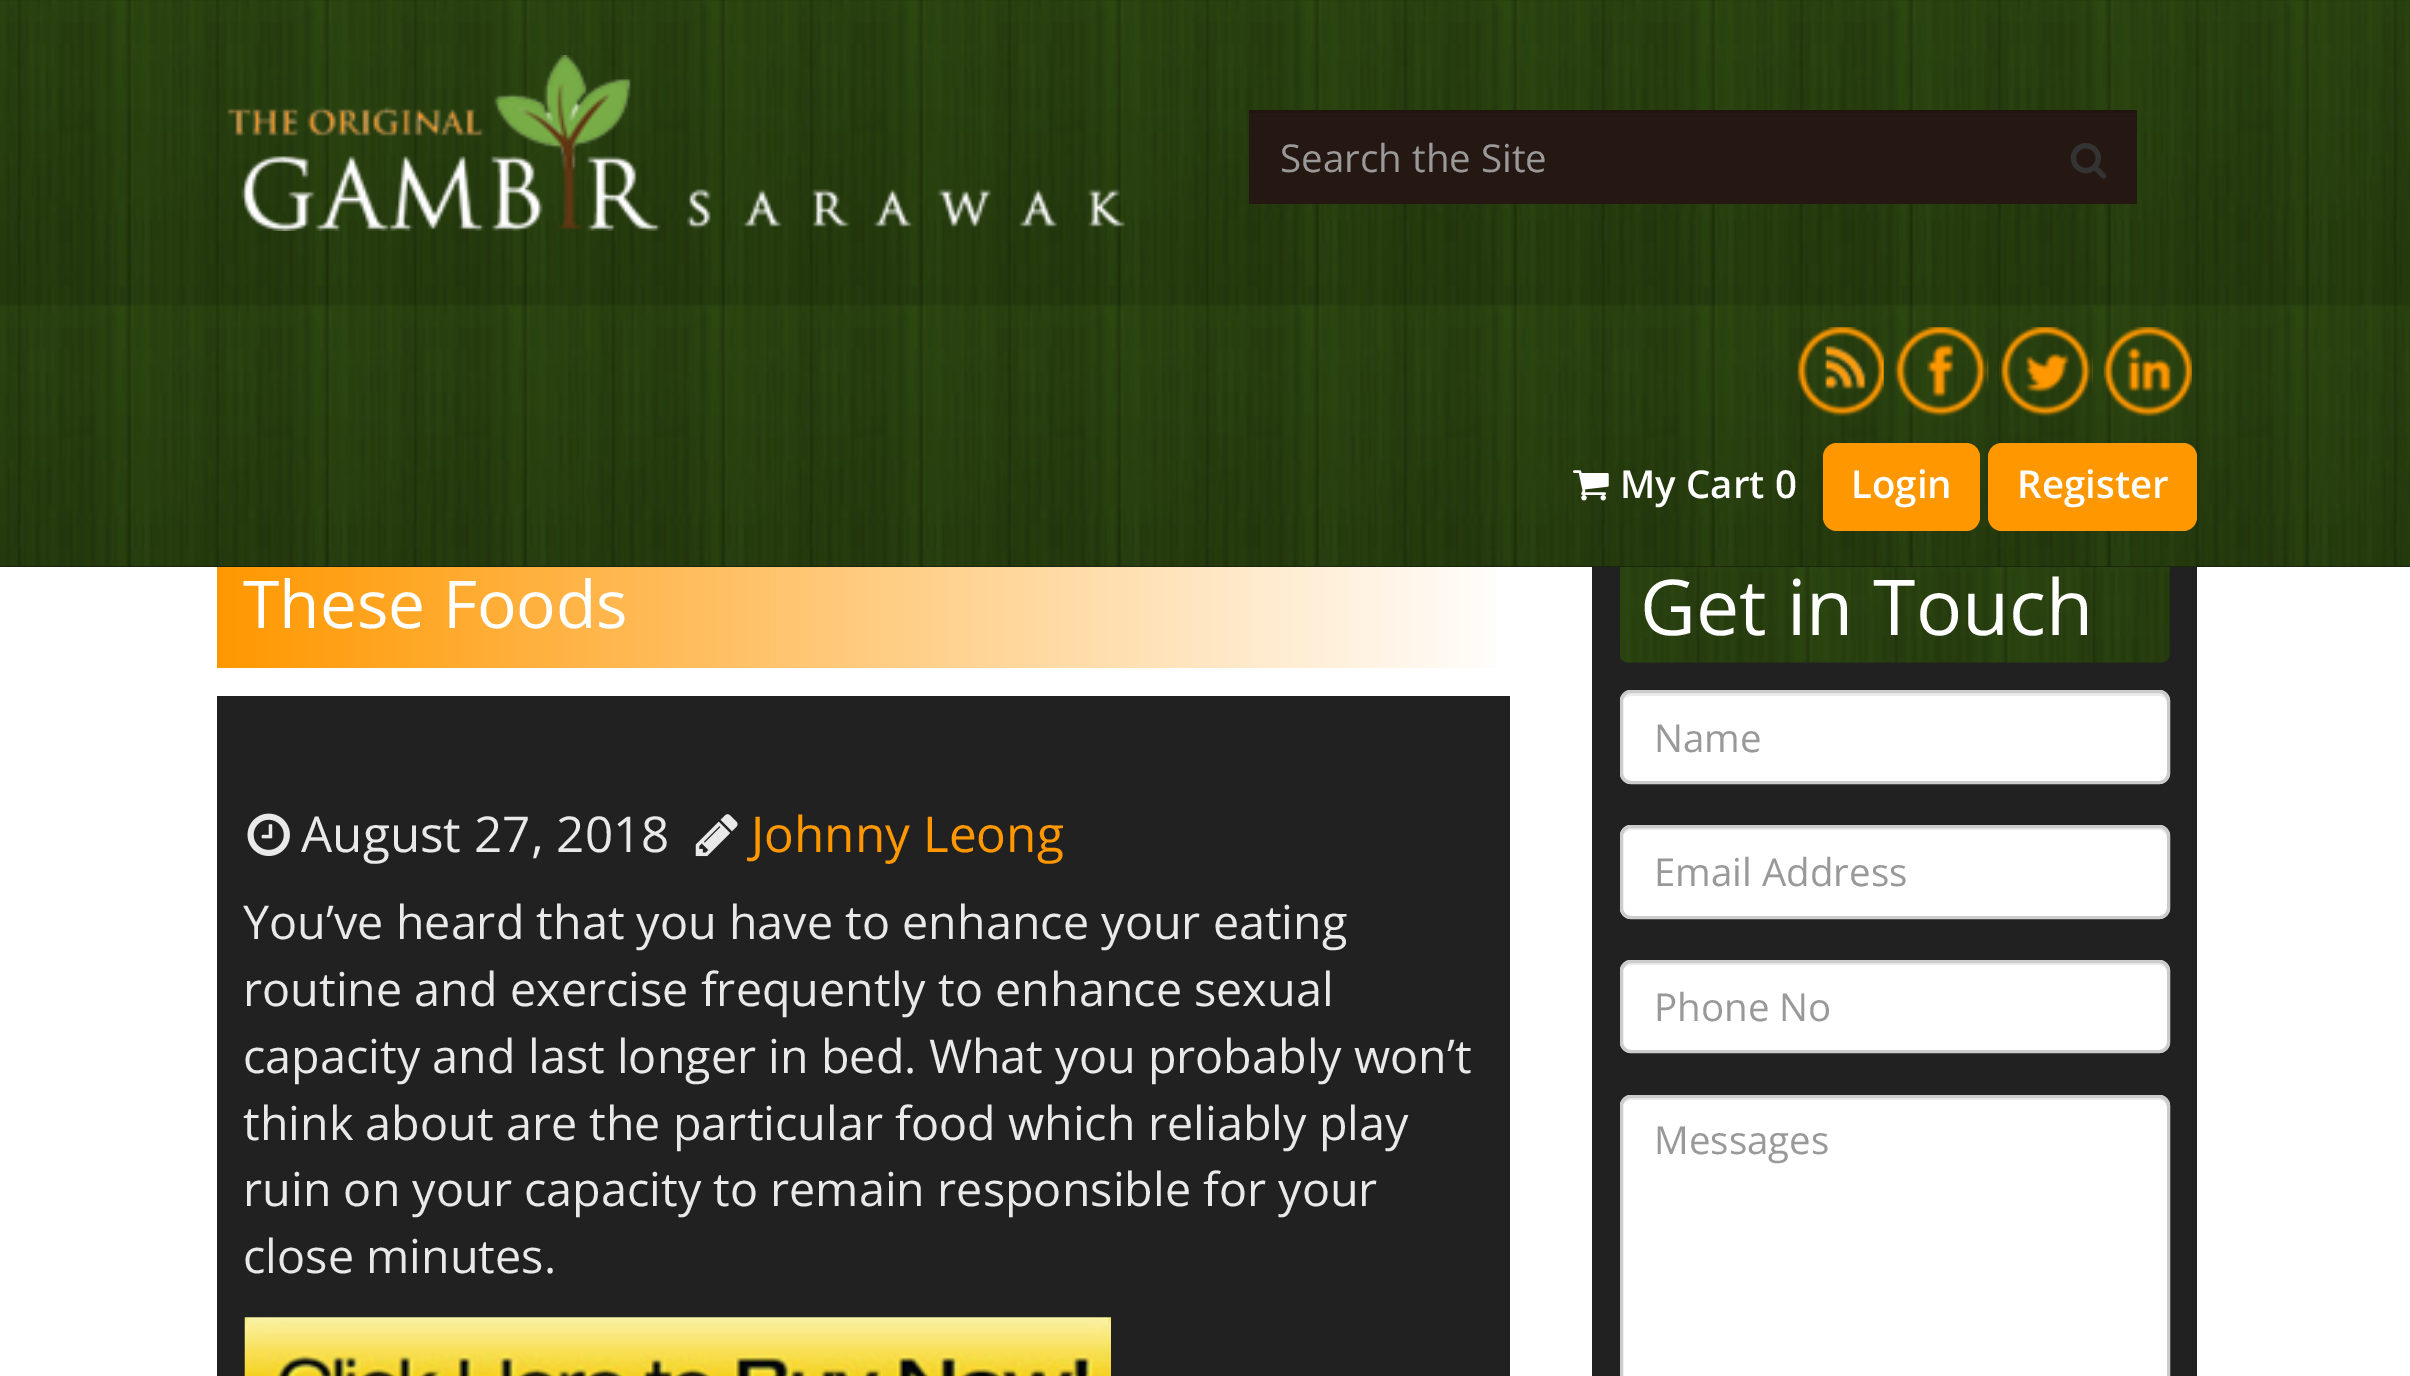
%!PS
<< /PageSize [2410 1376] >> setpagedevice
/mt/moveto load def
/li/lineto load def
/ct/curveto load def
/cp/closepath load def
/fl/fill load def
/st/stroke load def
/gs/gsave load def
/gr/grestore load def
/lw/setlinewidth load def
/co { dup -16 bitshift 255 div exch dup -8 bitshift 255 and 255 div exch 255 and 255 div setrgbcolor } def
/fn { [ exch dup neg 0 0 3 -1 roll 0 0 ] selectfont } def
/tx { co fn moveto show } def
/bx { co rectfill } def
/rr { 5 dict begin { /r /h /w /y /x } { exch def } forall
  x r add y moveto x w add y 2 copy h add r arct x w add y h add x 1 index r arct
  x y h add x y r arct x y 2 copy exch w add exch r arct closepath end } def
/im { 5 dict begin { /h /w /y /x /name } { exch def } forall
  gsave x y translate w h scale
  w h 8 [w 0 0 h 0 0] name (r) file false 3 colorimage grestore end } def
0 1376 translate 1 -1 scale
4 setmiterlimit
0 0 2410 1376 16#FFFFFF bx
0 566 2410 1 16#121212 bx
(media/1.raw) 0 0 2410 567 im
(media/2.raw) 227 55 898 176 im
1249 113 888 91 16#251711 bx
1249 110 888 3 16#221510 bx
(media/3.raw) 2070 143 37 36 im
(media/4.raw) 1797 327 87 90 im
(media/5.raw) 1894 327 95 90 im
(media/6.raw) 1999 327 94 90 im
(media/7.raw) 2103 327 89 90 im
(media/8.raw) 1573 470 36 31 im
16#FF9800 co
1823 443 157 88 14 rr fl
1988 443 209 88 14 rr fl
gs 217 567 mt 1497 567 li 1497 668 li 217 668 li cp clip newpath
<< /ShadingType 2 /ColorSpace /DeviceRGB /Coords [217 568 1510 568] /Extend [true true] /Function << /FunctionType 2 /Domain [0 1] /C0 [1 .596 0] /C1 [1 1 1] /N 1 >> >> shfill gr
217 696 1293 680 16#212121 bx
(media/9.raw) 247 813 43 43 im
(media/10.raw) 695 814 43 43 im
(media/11.raw) 244 1317 867 59 im
1592 567 605 809 16#212121 bx
(media/12.raw) 1620 567 550 96 im
16#FFFFFF co
1620 690 550 94 11 rr fl
16#ECECEC co
1631 696 mt 2159 696 li 2163 696 2167 699 2167 704 ct 2167 701 li 2167 697 2163 693 2159 693 ct 1631 693 li 1627 693 1624 696 1623 700 ct 1625 697 1628 696 1631 696 ct cp fl
16#CCCCCC co
3 lw
1621.5 691.5 547 91 9.5 rr st
16#FFFFFF co
1620 825 550 94 11 rr fl
16#ECECEC co
1631 830 mt 2159 830 li 2163 830 2167 834 2167 839 ct 2167 834 2165 828 2159 828 ct 1631 828 li 1627 828 1624 831 1623 835 ct 1625 832 1628 830 1631 830 ct cp fl
16#CCCCCC co
1621.5 826.5 547 91 9.5 rr st
16#FFFFFF co
1620 960 550 93 11 rr fl
16#ECECEC co
1631 965 mt 2159 965 li 2163 965 2167 969 2167 974 ct 2167 969 2165 963 2159 963 ct 1631 963 li 1627 963 1624 966 1623 970 ct 1625 967 1628 965 1631 965 ct cp fl
16#CCCCCC co
1621.5 961.5 547 90 9.5 rr st
16#FFFFFF co
1620 1095 550 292 11 rr fl
16#ECECEC co
1631 1100 mt 2159 1100 li 2163 1100 2167 1104 2167 1108 ct 2167 1105 li 2167 1101 2163 1097 2159 1097 ct 1631 1097 li 1627 1097 1623 1100 1623 1104 ct 1625 1102 1628 1100 1631 1100 ct cp fl
16#CCCCCC co
1621.5 1096.5 547 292 9.5 rr st
(Search the Site) 1280 172 /OpenSans-Regular 38.5 16#999999 tx
(My Cart 0) 1620 498 /OpenSans-SemiBold 38.5 16#FFFFFF tx
(Login) 1851 498 /OpenSans-SemiBold 38.5 16#FFFFFF tx
(Register) 2017 498 /OpenSans-SemiBold 38.5 16#FFFFFF tx
(These Foods) 243 628 /OpenSans-Regular 66 16#FFFFFF tx
(August 27, 2018) 301 852 /OpenSans-Regular 49.5 16#E9E9E9 tx
(Johnny Leong) 751 852 /OpenSans-Regular 49.5 16#FF9800 tx
(You’ve heard that you have to enhance your eating) 243 939 /OpenSans-Regular 46.75 16#E9E9E9 tx
(routine and exercise frequently to enhance sexual) 243 1006 /OpenSans-Regular 46.75 16#E9E9E9 tx
(capacity and last longer in bed. What you probably won’t) 243 1073 /OpenSans-Regular 46.75 16#E9E9E9 tx
(think about are the particular food which reliably play) 243 1140 /OpenSans-Regular 46.75 16#E9E9E9 tx
(ruin on your capacity to remain responsible for your) 243 1206 /OpenSans-Regular 46.75 16#E9E9E9 tx
(close minutes.) 243 1273 /OpenSans-Regular 46.75 16#E9E9E9 tx
(Get in Touch) 1640 635 /OpenSans-Regular 77 16#FFFFFF tx
(Name) 1654 752 /OpenSans-Regular 38.5 16#999999 tx
(Email Address) 1654 886 /OpenSans-Regular 38.5 16#999999 tx
(Phone No) 1654 1021 /OpenSans-Regular 38.5 16#999999 tx
(Messages) 1654 1154 /OpenSans-Regular 38.5 16#999999 tx
showpage
